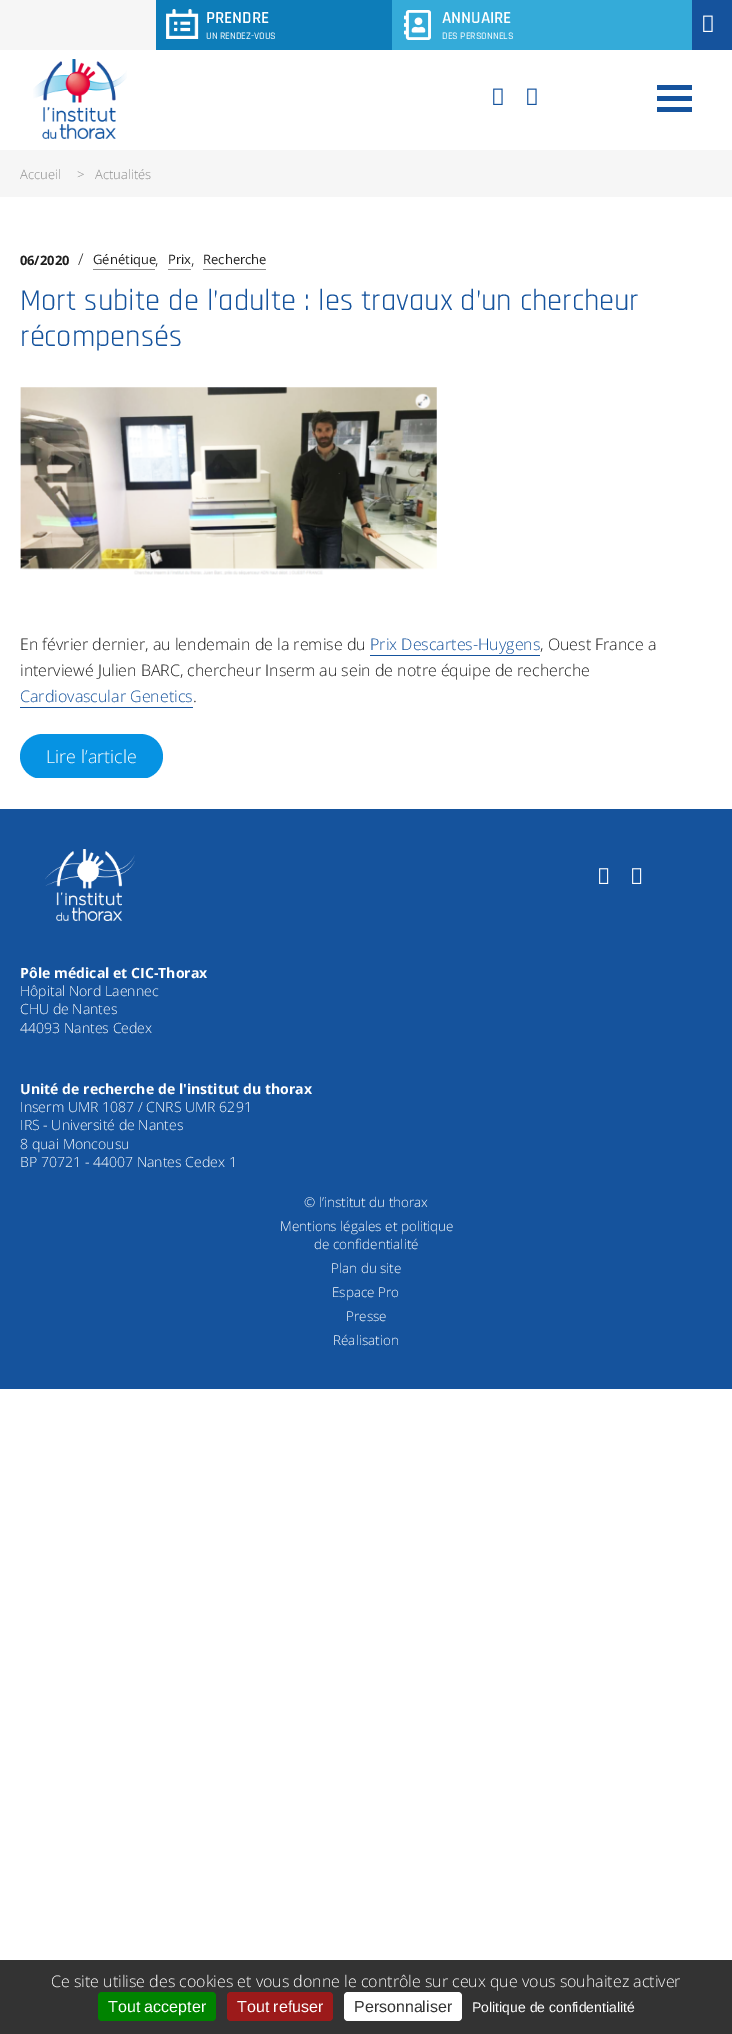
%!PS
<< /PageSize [732 2034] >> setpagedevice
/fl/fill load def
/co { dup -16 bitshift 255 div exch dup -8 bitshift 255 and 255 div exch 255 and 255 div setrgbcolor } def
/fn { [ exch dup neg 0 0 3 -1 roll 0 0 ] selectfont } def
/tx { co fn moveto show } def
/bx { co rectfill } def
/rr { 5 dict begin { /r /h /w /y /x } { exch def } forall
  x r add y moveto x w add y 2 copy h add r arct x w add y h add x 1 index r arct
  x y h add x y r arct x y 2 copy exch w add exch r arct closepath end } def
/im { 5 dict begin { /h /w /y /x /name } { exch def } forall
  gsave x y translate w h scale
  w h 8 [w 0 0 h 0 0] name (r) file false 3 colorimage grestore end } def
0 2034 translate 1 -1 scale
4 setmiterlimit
0 0 732 2034 16#FFFFFF bx
0 0 156 50 16#F6F6F6 bx
156 0 236 50 16#0D7DB9 bx
(media/1.raw) 166 9 33 30 im
392 0 300 50 16#34ABD9 bx
(media/2.raw) 404 10 27 30 im
692 0 40 50 16#15539D bx
(media/3.raw) 703 15 10 17 im
(media/4.raw) 33 59 94 80 im
(media/5.raw) 493 88 10 17 im
(media/5.raw) 527 88 10 17 im
657 85 35 5 16#15539D bx
657 96 35 5 16#15539D bx
657 107 35 5 16#15539D bx
0 150 732 47 16#F6F6F6 bx
93 269 62 1 16#8B8B8B bx
168 269 23 1 16#8B8B8B bx
203 269 63 1 16#8B8B8B bx
(media/6.raw) 20 387 417 188 im
370 655 170 1 16#15539D bx
20 707 173 1 16#15539D bx
16#0693E3 co
20 734 143 45 22.5 rr fl
31 778 121 1 16#FFFFFF bx
0 809 732 580 16#15539D bx
(media/7.raw) 45 849 90 72 im
(media/8.raw) 599 868 10 16 im
(media/8.raw) 632 868 10 16 im
0 1960 732 74 16#333333 bx
16#008300 co
98 1992 118 29 4 rr fl
16#9C1A1A co
227 1992 106 29 4 rr fl
16#FFFFFF co
344 1992 118 29 4 rr fl
(PRENDRE) 206 23 /Rajdhani-SemiBold 17 16#FFFFFF tx
(UN RENDEZ-VOUS) 206 39 /Rajdhani-Medium 10 16#FFFFFF tx
(ANNUAIRE) 442 23 /Rajdhani-SemiBold 17 16#FFFFFF tx
(DES PERSONNELS) 442 39 /Rajdhani-Medium 10 16#FFFFFF tx
(Accueil) 20 179 /OpenSans-Light 13 16#8B8B8B tx
(>) 77 179 /OpenSans-Light 13 16#8B8B8B tx
(Actualités) 95 179 /OpenSans-Light 13 16#8B8B8B tx
(0) 20 265 /NotoSans-Bold 13 16#1F1F1F tx
(6/2020) 27 265 /OpenSans-Bold 13 16#1F1F1F tx
(/) 78 265 /OpenSans-Light 16 16#1F1F1F tx
(Génétique) 93 264 /OpenSans-Regular 13 16#1F1F1F tx
(Prix) 168 264 /OpenSans-Regular 13 16#1F1F1F tx
(Recherche) 203 264 /OpenSans-Regular 13 16#1F1F1F tx
(,) 155 265 /OpenSans-Light 16 16#1F1F1F tx
(,) 191 265 /OpenSans-Light 16 16#1F1F1F tx
(Mort subite de l’adulte : les travaux d’un chercheur) 20 310 /Rajdhani-Regular 30.4 16#15539D tx
(récompensés) 20 346 /Rajdhani-Regular 30.4 16#15539D tx
(En février dernier, au lendemain de la remise du) 20 650 /OpenSans-Light 16 16#1F1F1F tx
(Prix Descartes-Huygens) 370 650 /OpenSans-Light 16 16#15539D tx
(, Ouest France a) 540 650 /OpenSans-Light 16 16#1F1F1F tx
(interviewé Julien BARC, chercheur Inserm au sein de notre équipe de recherche) 20 676 /OpenSans-Light 16 16#1F1F1F tx
(Cardiovascular Genetics) 20 702 /OpenSans-Light 16 16#15539D tx
(.) 193 702 /OpenSans-Light 16 16#1F1F1F tx
(Lire l’article) 46 763 /OpenSans-Light 18 16#FFFFFF tx
(Pôle médical et CIC-Thorax) 20 978 /OpenSans-Bold 14.1 16#FFFFFF tx
(Hôpital Nord Laennec) 20 996 /OpenSans-Light 14.1 16#FFFFFF tx
(CHU de Nantes) 20 1014 /OpenSans-Light 14.1 16#FFFFFF tx
(44093 Nantes Cedex) 20 1033 /OpenSans-Light 14.1 16#FFFFFF tx
(Unité de recherche de l'institut du thorax) 20 1094 /OpenSans-Bold 14.1 16#FFFFFF tx
(Inserm UMR 1087 / CNRS UMR 6291) 20 1112 /OpenSans-Light 14.1 16#FFFFFF tx
(IRS - Université de Nantes) 20 1130 /OpenSans-Light 14.1 16#FFFFFF tx
(8 quai Moncousu) 20 1149 /OpenSans-Light 14.1 16#FFFFFF tx
(BP 70721 - 44007 Nantes Cedex 1) 20 1167 /OpenSans-Light 14.1 16#FFFFFF tx
(© l’institut du thorax) 304 1207 /OpenSans-Light 13.5 16#FFFFFF tx
(Mentions légales et politique) 280 1231 /OpenSans-Light 13.5 16#FFFFFF tx
(de confidentialité) 314 1249 /OpenSans-Light 13.5 16#FFFFFF tx
(Plan du site) 331 1273 /OpenSans-Light 13.5 16#FFFFFF tx
(Espace Pro) 332 1297 /OpenSans-Light 13.5 16#FFFFFF tx
(Presse) 346 1321 /OpenSans-Light 13.5 16#FFFFFF tx
(Réalisation) 333 1345 /OpenSans-Light 13.5 16#FFFFFF tx
(Ce site utilise des cookies et vous donne le contrôle sur ceux que vous souhaitez activer) 51 1987 /OpenSans-Light 16 16#FFFFFF tx
(Tout accepter) 108 2012 /LiberationSans-Regular 16 16#FFFFFF tx
(Tout refuser) 237 2012 /LiberationSans-Regular 16 16#FFFFFF tx
(Personnaliser) 354 2012 /LiberationSans-Regular 16 16#333333 tx
(Politique de confidentialité) 472 2012 /LiberationSans-Regular 14 16#FFFFFF tx
showpage
